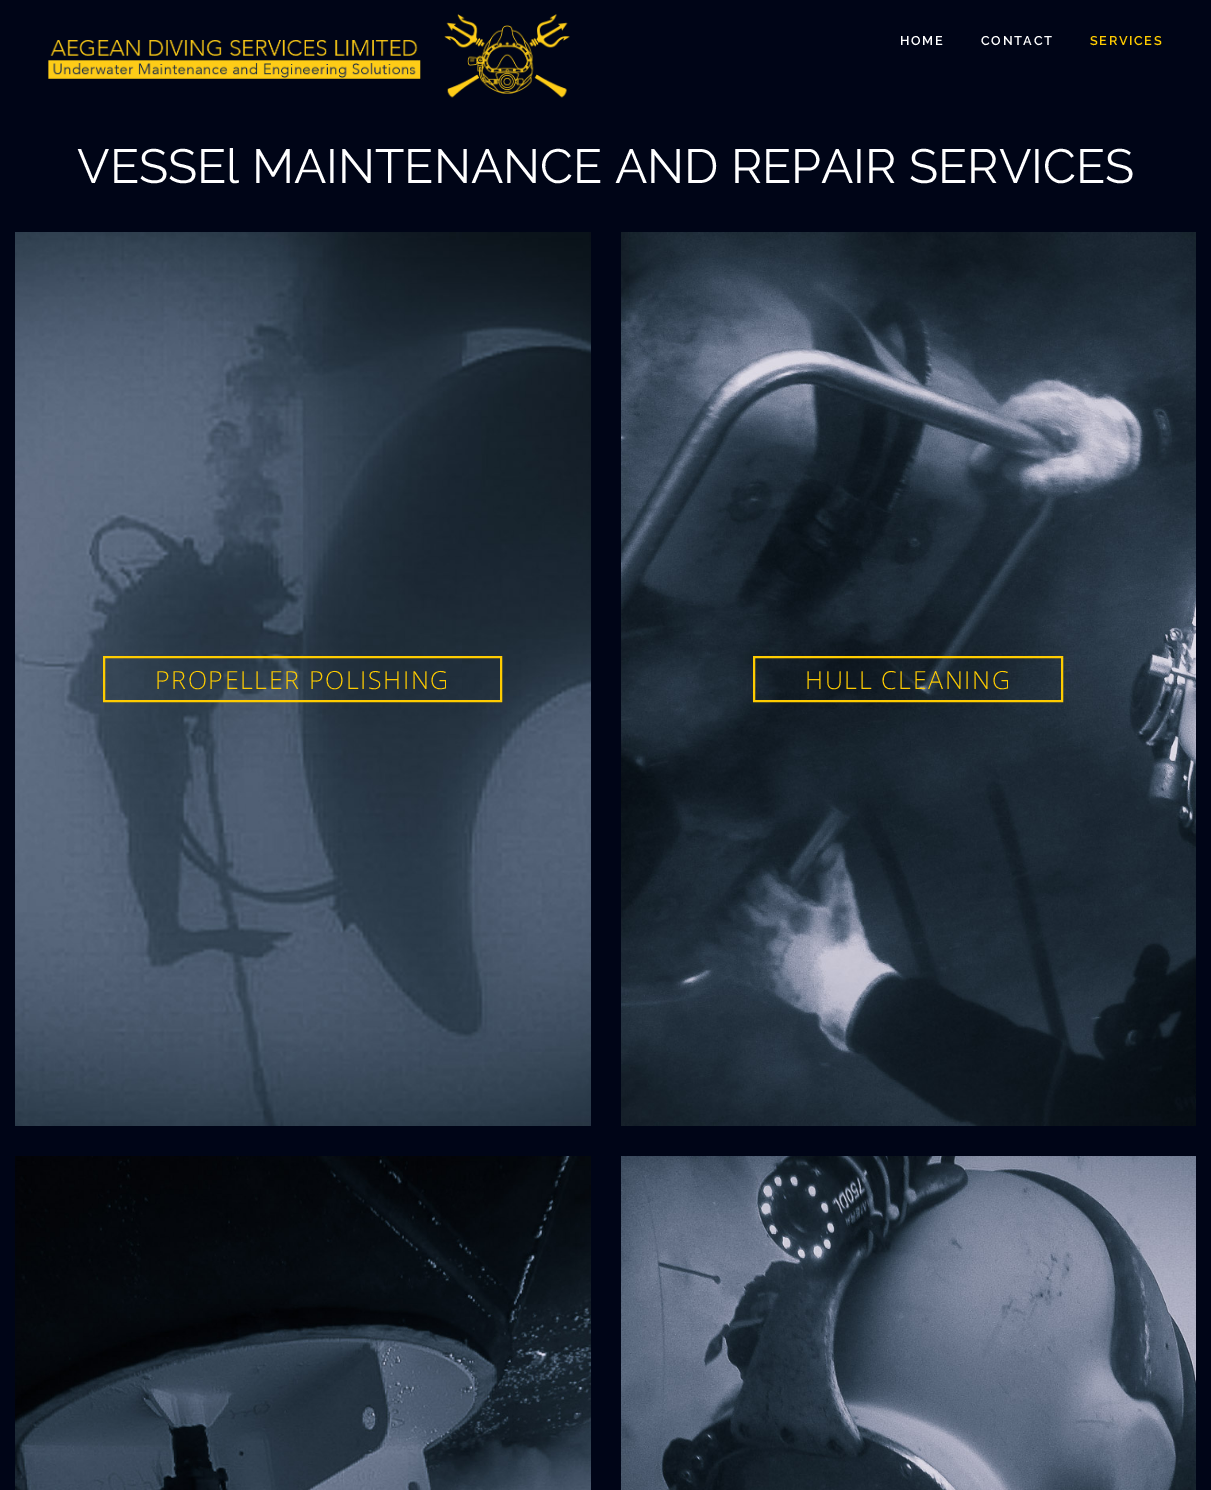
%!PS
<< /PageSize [1211 1490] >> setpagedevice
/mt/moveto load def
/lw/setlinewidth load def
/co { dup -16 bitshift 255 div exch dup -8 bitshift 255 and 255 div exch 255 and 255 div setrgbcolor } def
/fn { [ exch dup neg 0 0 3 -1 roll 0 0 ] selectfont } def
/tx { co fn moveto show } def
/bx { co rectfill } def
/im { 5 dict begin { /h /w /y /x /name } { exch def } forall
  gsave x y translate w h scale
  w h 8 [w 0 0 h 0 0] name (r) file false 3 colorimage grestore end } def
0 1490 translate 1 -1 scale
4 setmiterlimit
0 0 1211 1490 16#000517 bx
(media/1.raw) 48 14 522 84 im
(media/2.raw) 15 232 576 894 im
16#FFCC00 co
2 lw
104 657 397 44 rectstroke
(media/3.raw) 621 232 575 894 im
754 657 308 44 rectstroke
(media/4.raw) 15 1156 576 334 im
(media/5.raw) 621 1156 575 334 im
/Raleway-SemiBold 12.75 fn
16#FFFFFF co
900 45 mt 1.6 0 (HOME) ashow
981 45 mt 1.6 0 (CONTACT) ashow
16#FFCC00 co
1090 45 mt 1.6 0 (SERVICES) ashow
(VESSEl MAINTENANCE AND REPAIR SERVICES) 77 183 /Raleway-Regular 48 16#FFFFFF tx
/OpenSans-Light 25 fn
16#FFCC00 co
155 689 mt 1.6 0 (PROPELLER POLISHING) ashow
805 689 mt 1.6 0 (HULL CLEANING) ashow
showpage
